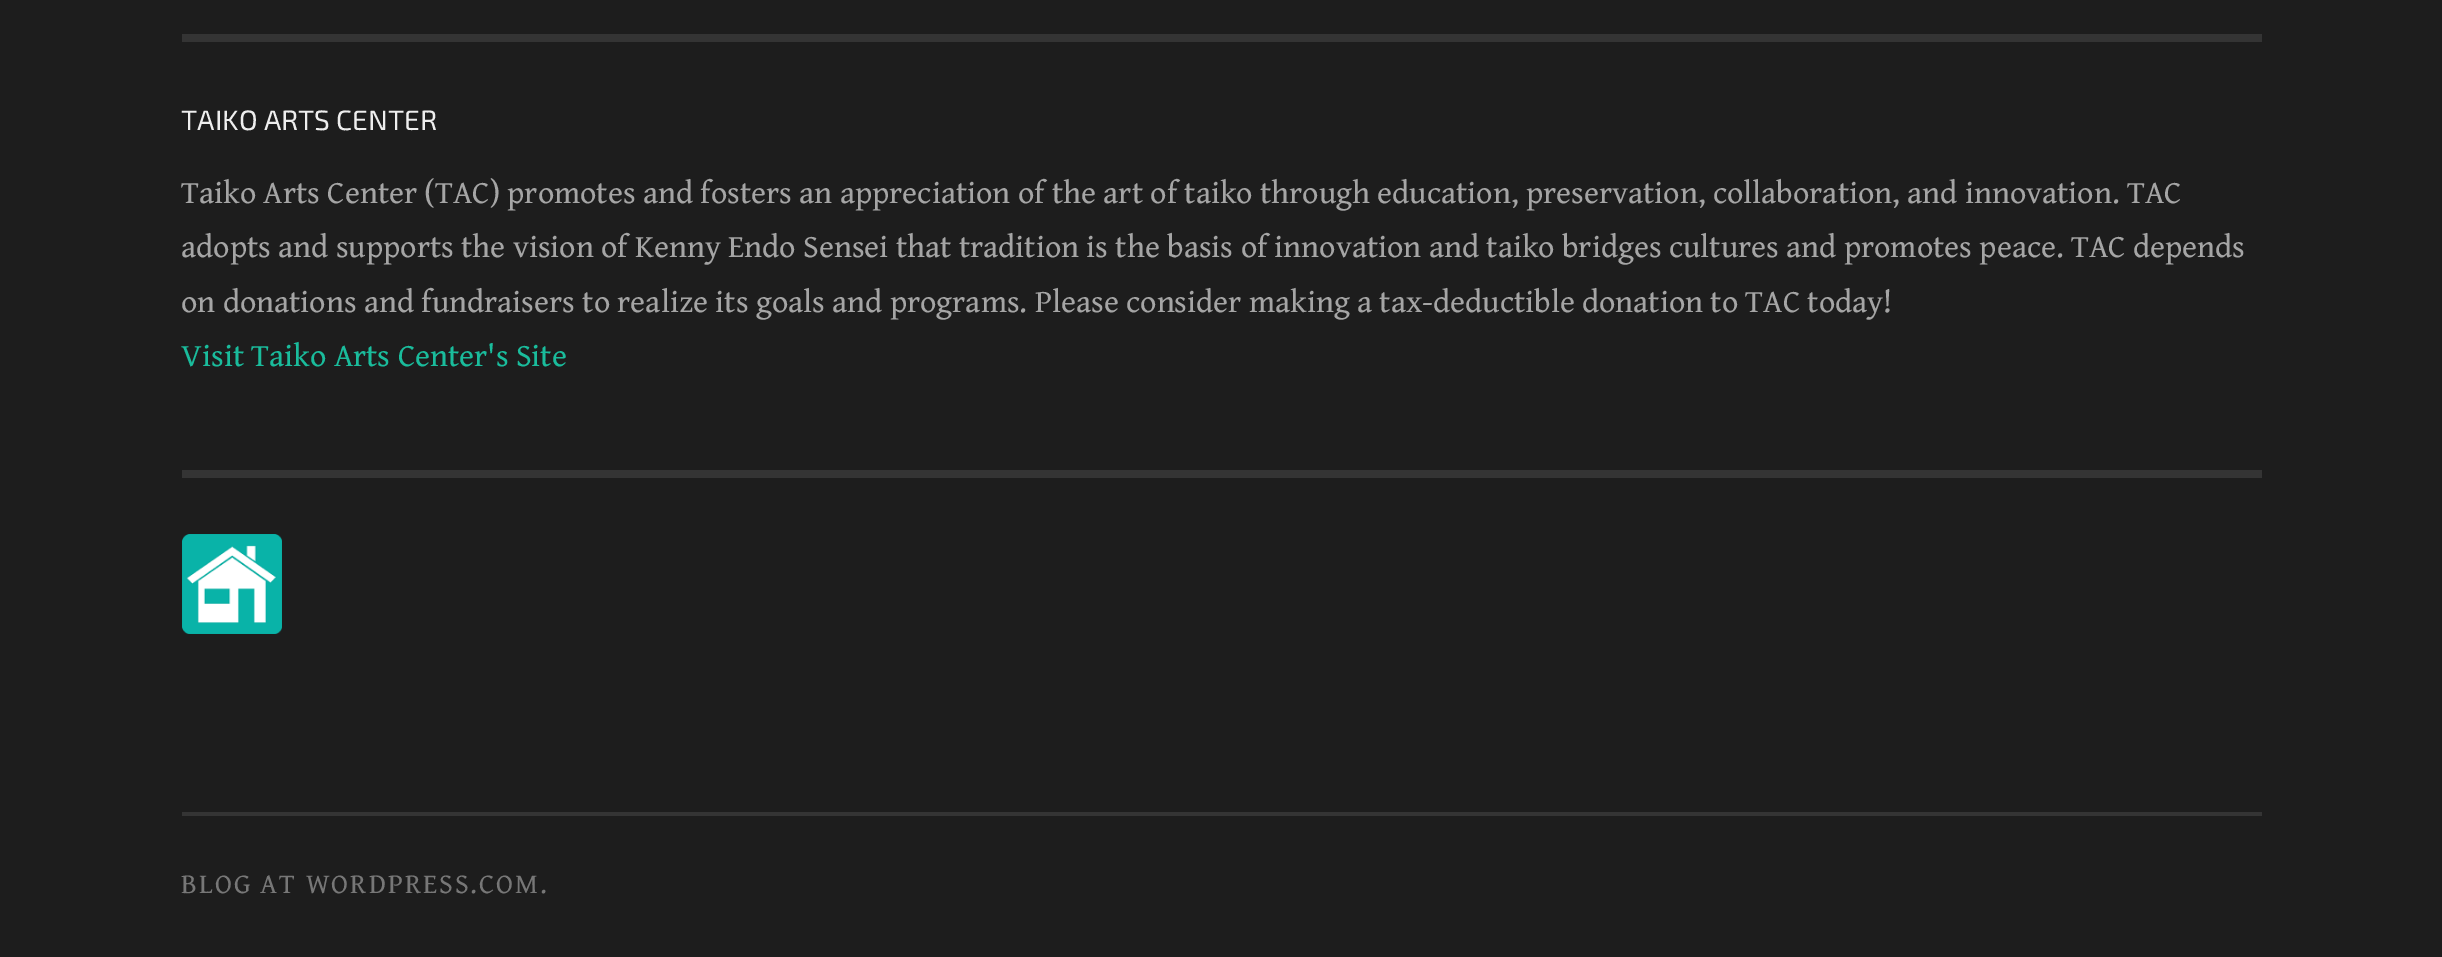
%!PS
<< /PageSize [2442 957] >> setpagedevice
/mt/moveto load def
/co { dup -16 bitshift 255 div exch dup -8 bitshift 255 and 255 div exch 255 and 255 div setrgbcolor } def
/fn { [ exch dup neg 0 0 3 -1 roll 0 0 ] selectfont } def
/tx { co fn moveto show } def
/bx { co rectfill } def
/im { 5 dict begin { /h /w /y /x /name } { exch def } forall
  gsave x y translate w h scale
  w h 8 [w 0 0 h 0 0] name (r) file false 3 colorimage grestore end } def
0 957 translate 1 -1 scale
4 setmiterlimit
0 0 2442 957 16#1D1D1D bx
182 34 2080 8 16#343434 bx
182 470 2080 8 16#343434 bx
(media/1.raw) 182 534 100 100 im
182 812 2080 4 16#343434 bx
(TAIKO ARTS CENTER) 181 130 /Exo2-Regular 28 16#EEEEEE tx
(Taiko Arts Center \(TAC\) promotes and fosters an appreciation of the art of taiko through education, preservation, collaboration, and innovation. TAC) 181 203 /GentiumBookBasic-Regular 32 16#A5A5A5 tx
(adopts and supports the vision of Kenny Endo Sensei that tradition is the basis of innovation and taiko bridges cultures and promotes peace. TAC depends) 181 257 /GentiumBookBasic-Regular 32 16#A5A5A5 tx
(on donations and fundraisers to realize its goals and programs. Please consider making a tax-deductible donation to TAC today!) 181 312 /GentiumBookBasic-Regular 32 16#A5A5A5 tx
(Visit Taiko Arts Center's Site) 181 366 /GentiumBookBasic-Regular 32 16#1ABC9C tx
/GentiumBookBasic-Regular 28 fn
16#777777 co
181 893 mt 2 0 (BLOG AT WORDPRESS.COM.) ashow
showpage
